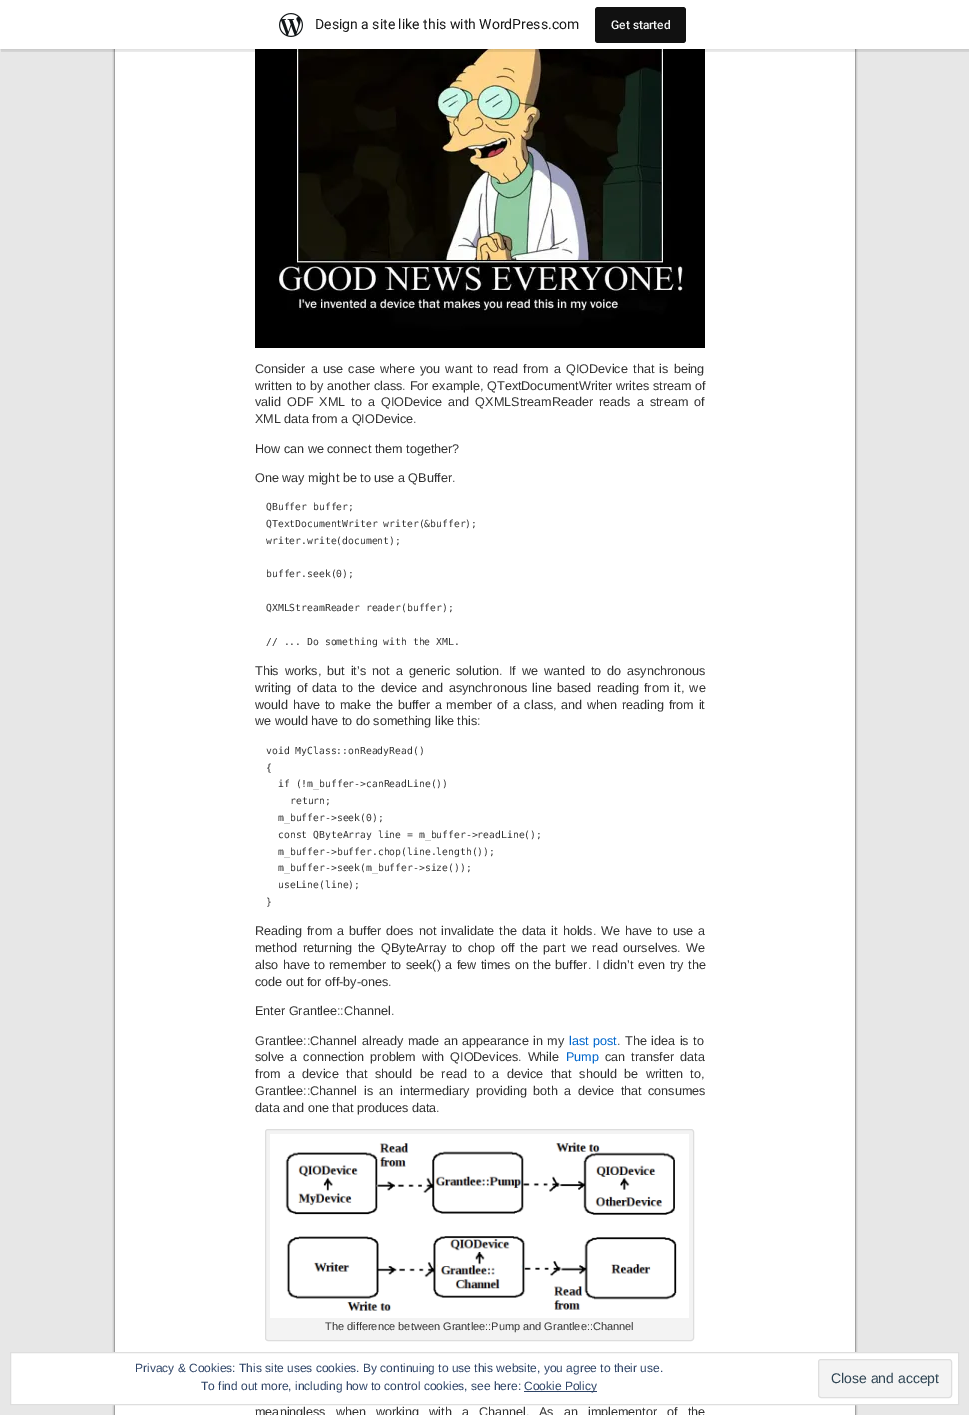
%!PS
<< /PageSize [969 1415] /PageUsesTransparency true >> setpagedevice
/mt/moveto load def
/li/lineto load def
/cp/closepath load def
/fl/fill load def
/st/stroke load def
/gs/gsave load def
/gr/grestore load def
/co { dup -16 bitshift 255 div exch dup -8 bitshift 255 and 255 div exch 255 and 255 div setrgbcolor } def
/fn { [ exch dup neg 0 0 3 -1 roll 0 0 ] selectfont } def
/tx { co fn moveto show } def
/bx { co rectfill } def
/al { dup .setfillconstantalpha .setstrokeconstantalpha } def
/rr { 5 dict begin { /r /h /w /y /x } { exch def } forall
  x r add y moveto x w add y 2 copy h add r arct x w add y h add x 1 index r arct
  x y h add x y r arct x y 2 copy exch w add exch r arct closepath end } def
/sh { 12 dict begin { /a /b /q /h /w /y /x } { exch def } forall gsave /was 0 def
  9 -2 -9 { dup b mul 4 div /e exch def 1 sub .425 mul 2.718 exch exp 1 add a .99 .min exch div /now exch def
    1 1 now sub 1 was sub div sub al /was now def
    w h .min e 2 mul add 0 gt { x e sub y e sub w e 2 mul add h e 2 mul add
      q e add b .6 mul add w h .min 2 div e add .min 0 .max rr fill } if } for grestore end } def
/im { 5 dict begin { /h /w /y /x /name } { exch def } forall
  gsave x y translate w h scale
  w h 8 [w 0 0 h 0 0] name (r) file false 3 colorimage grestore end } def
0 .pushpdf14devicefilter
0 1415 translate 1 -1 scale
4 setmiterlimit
0 0 969 1415 16#E7E7E7 bx
(media/2.raw) 112 49 746 1366 im
(media/3.raw) 255 49 450 299 im
16#000000 co
0 1 969 49 0 1 .05 sh
0.08 al
1 49 mt 1 52 li 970 52 li 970 3 li 969 3 li 969 49 li cp fl
1 al
0 0 969 49 16#FFFFFF bx
(media/1.raw) 279 13 24 24 im
16#111111 co
595 7 91 36 3 rr fl
16#F3F3F3 co
265.5 1129.5 428 211 2.5 rr gs fl gr
16#DDDDDD co
st
(media/4.raw) 270 1134 419 184 im
16#FFFFFF co
10.5 1352.5 mt 958.5 1352.5 li 958.5 1404.5 li 10.5 1404.5 li cp gs fl gr
16#DEDEDE co
st
524 1391 73 1 16#2E4467 bx
16#F3F3F3 co
818.5 1359.5 133 38 2.5 rr gs fl gr
16#DEDEDE co
st
(Design a site like this with WordPress.com) 315 29 /Roboto-Regular 14 16#171717 tx
(Get started) 611 29 /Roboto-Medium 12 16#F6F7F7 tx
/LiberationSans-Regular 12.6 fn
16#333333 co
255 373 mt 1.75 0 32 (Consider a use case where you want to read from a QIODevice that is being) widthshow
255 390 mt .25 0 32 (written to by another class. For example, QTextDocumentWriter writes stream of) widthshow
255 406 mt 2.5 0 32 (valid ODF XML to a QIODevice and QXMLStreamReader reads a stream of) widthshow
(XML data from a QIODevice.) 255 423 /LiberationSans-Regular 12.6 16#333333 tx
(How can we connect them together?) 255 453 /LiberationSans-Regular 12.6 16#333333 tx
(One way might be to use a QBuffer.) 255 482 /LiberationSans-Regular 12.6 16#333333 tx
(QBuffer buffer;) 266 510 /DejaVuSansMono-Regular 9.75 16#333333 tx
(QTextDocumentWriter writer\(&buffer\);) 266 527 /DejaVuSansMono-Regular 9.75 16#333333 tx
(writer.write\(document\);) 266 544 /DejaVuSansMono-Regular 9.75 16#333333 tx
(buffer.seek\(0\);) 266 577 /DejaVuSansMono-Regular 9.75 16#333333 tx
(QXMLStreamReader reader\(buffer\);) 266 611 /DejaVuSansMono-Regular 9.75 16#333333 tx
(// ... Do something with the XML.) 266 645 /DejaVuSansMono-Regular 9.75 16#333333 tx
/LiberationSans-Regular 12.6 fn
255 675 mt 2.5 0 32 (This works, but it’s not a generic solution. If we wanted to do asynchronous) widthshow
255 692 mt 1.75 0 32 (writing of data to the device and asynchronous line based reading from it, we) widthshow
255 709 mt 1.25 0 32 (would have to make the buffer a member of a class, and when reading from it) widthshow
(we would have to do something like this:) 255 725 /LiberationSans-Regular 12.6 16#333333 tx
(void MyClass::onReadyRead\(\)) 266 754 /DejaVuSansMono-Regular 9.75 16#333333 tx
({) 266 771 /DejaVuSansMono-Regular 9.75 16#333333 tx
(if \(!m_buffer->canReadLine\(\)\)) 278 787 /DejaVuSansMono-Regular 9.75 16#333333 tx
(return;) 290 804 /DejaVuSansMono-Regular 9.75 16#333333 tx
(m_buffer->seek\(0\);) 278 821 /DejaVuSansMono-Regular 9.75 16#333333 tx
(const QByteArray line = m_buffer->readLine\(\);) 278 838 /DejaVuSansMono-Regular 9.75 16#333333 tx
(m_buffer->buffer.chop\(line.length\(\)\);) 278 855 /DejaVuSansMono-Regular 9.75 16#333333 tx
(m_buffer->seek\(m_buffer->size\(\)\);) 278 871 /DejaVuSansMono-Regular 9.75 16#333333 tx
(useLine\(line\);) 278 888 /DejaVuSansMono-Regular 9.75 16#333333 tx
(}) 266 905 /DejaVuSansMono-Regular 9.75 16#333333 tx
/LiberationSans-Regular 12.6 fn
255 935 mt 1.5 0 32 (Reading from a buffer does not invalidate the data it holds. We have to use a) widthshow
255 952 mt 2.1 0 32 (method returning the QByteArray to chop off the part we read ourselves. We) widthshow
255 969 mt .9 0 32 (also have to remember to seek\(\) a few times on the buffer. I didn’t even try the) widthshow
(code out for off-by-ones.) 255 986 /LiberationSans-Regular 12.6 16#333333 tx
(Enter Grantlee::Channel.) 255 1015 /LiberationSans-Regular 12.6 16#333333 tx
255 1045 mt 1 0 32 (Grantlee::Channel already made an appearance in my) widthshow
16#0066CC co
569 1045 mt 1 0 32 (last post) widthshow
16#333333 co
617 1045 mt 1 0 32 (. The idea is to) widthshow
255 1061 mt 2.5 0 32 (solve a connection problem with QIODevices. While) widthshow
(Pump) 566 1061 /LiberationSans-Regular 12.6 16#0066CC tx
16#333333 co
605 1061 mt 2.5 0 32 (can transfer data) widthshow
255 1078 mt 4.1 0 32 (from a device that should be read to a device that should be written to,) widthshow
255 1095 mt 3 0 32 (Grantlee::Channel is an intermediary providing both a device that consumes) widthshow
(data and one that produces data.) 255 1112 /LiberationSans-Regular 12.6 16#333333 tx
(The difference between Grantlee::Pump and Grantlee::Channel) 325 1330 /LiberationSans-Regular 11 16#333333 tx
/LiberationSans-Regular 12.6 fn
255 1416 mt 6.5 0 32 (meaningless when working with a Channel. As an implementor of the) widthshow
(Privacy & Cookies: This site uses cookies. By continuing to use this website, you agree to their use.) 135 1372 /LiberationSans-Regular 12 16#2E4467 tx
(To find out more, including how to control cookies, see here:) 201 1390 /LiberationSans-Regular 12 16#2E4467 tx
(Cookie Policy) 524 1390 /LiberationSans-Regular 12 16#2E4467 tx
(Close and accept) 831 1383 /LiberationSans-Regular 14 16#2E4453 tx
.poppdf14devicefilter showpage
